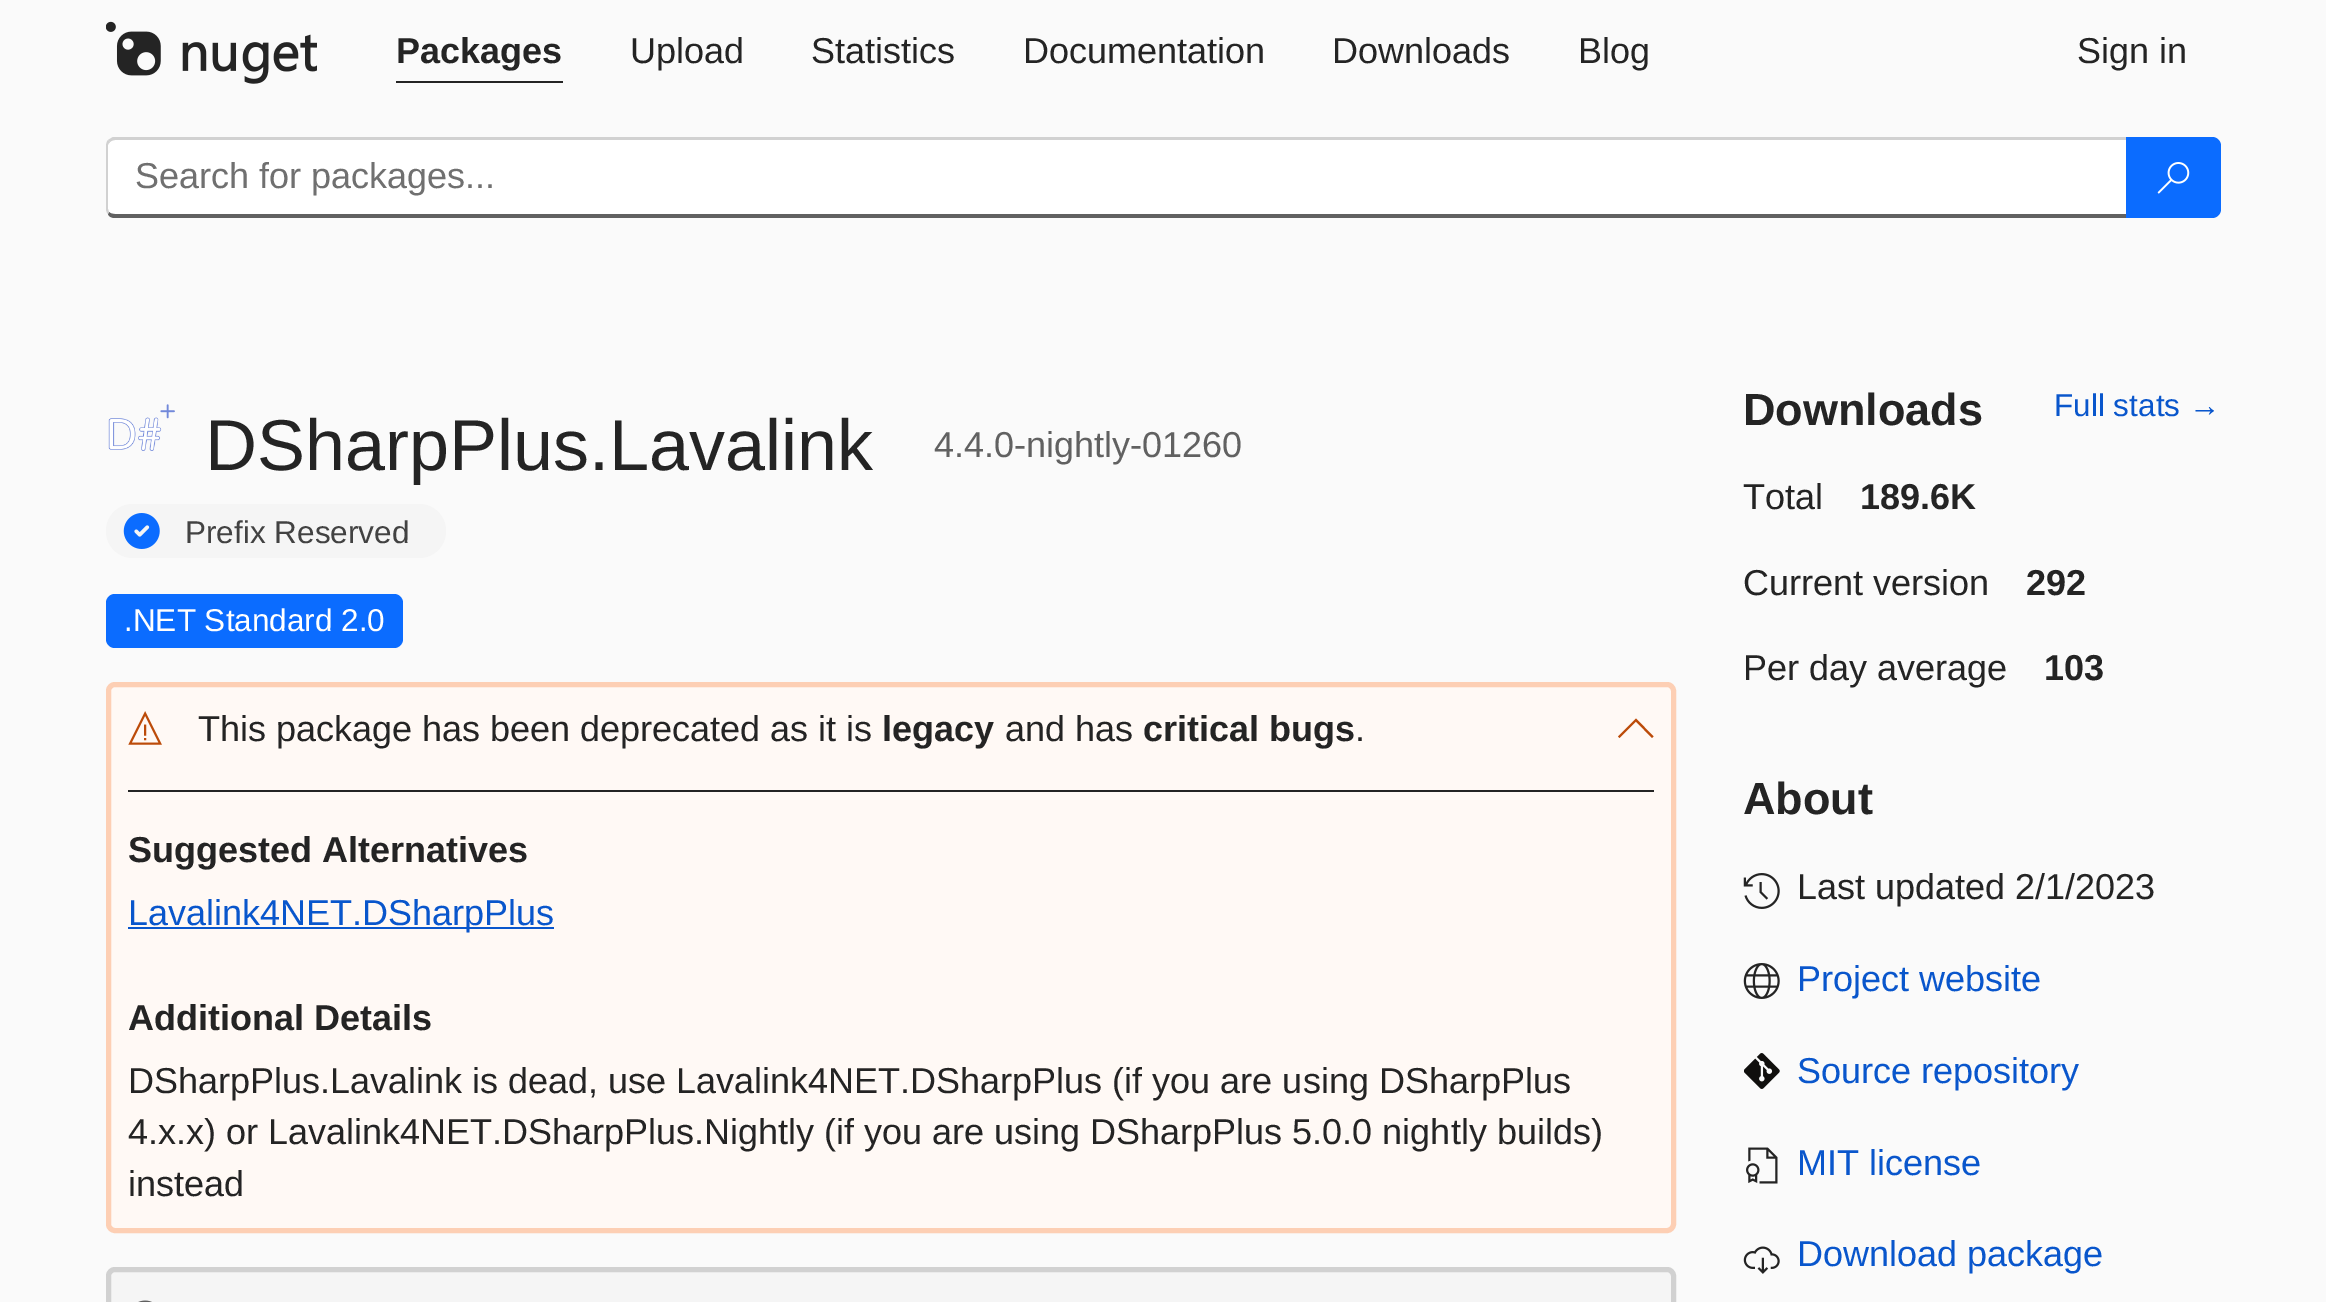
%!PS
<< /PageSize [2326 1302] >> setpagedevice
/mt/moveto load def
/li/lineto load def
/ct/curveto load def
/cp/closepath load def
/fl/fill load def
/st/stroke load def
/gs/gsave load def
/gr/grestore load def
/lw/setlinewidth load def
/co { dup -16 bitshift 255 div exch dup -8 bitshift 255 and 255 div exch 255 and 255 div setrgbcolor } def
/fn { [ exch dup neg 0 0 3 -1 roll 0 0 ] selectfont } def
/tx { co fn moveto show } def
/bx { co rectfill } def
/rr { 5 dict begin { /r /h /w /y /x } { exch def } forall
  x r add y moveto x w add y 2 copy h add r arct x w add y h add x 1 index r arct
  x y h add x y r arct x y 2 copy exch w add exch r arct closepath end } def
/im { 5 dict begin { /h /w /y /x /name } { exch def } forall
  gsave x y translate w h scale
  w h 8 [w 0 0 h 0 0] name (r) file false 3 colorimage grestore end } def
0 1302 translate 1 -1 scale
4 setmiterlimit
0 0 2326 1302 16#FAFAFA bx
(media/1.raw) 106 21 211 63 im
396 81 167 2 16#242424 bx
16#FFFFFF co
115 140 mt 2126 140 li 2126 214 li 115 214 li 111 214 108 212 108 209 ct 108 146 li 108 143 111 140 115 140 ct cp fl
16#D1D1D1 co
115 140 mt 113 140 111 141 110 142 ct 108 140 li 110 139 111 138 113 137 ct 2128 137 li 2126 140 li cp fl
16#616161 co
2128 217 mt 2128 218 li 115 218 li 112 218 109 217 108 214 ct 109 212 li 110 213 112 214 115 214 ct 2126 214 li 2126 213 li cp fl
16#D1D1D1 co
108 214 mt 107 213 106 211 106 209 ct 106 146 li 106 144 107 141 108 140 ct 110 142 li 109 143 108 144 108 145 ct 108 209 li 109 212 li cp fl
16#0B6CFF co
2126 137 mt 2212 137 li 2217 137 2221 141 2221 146 ct 2221 209 li 2221 214 2217 218 2212 218 ct 2126 218 li cp fl
(media/2.raw) 2157 162 33 32 im
(media/3.raw) 108 404 67 47 im
16#F5F5F5 co
106 504 340 54 27 rr fl
(media/4.raw) 123 513 37 36 im
16#0B6CFF co
106 594 297 54 9 rr fl
16#FFF9F5 co
108.5 684.5 1565 546 6.5 rr gs fl gr
16#FDCFB4 co
5 lw
st
(media/5.raw) 128 711 34 34 im
16#BC4B09 co
1652 738 mt 1636 721.5 li 1619.5 738 li 1618 736.5 li 1636 718.5 li 1653.5 736.5 li cp fl
128 790 1526 2 16#242424 bx
128 927 426 2 16#0956CC bx
16#F5F5F5 co
108.5 1269.5 1565 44 6.5 rr gs fl gr
16#D1D1D1 co
st
(media/6.raw) 138 1300 14 2 im
(media/7.raw) 1743 873 37 36 im
(media/8.raw) 1743 963 37 36 im
(media/9.raw) 1744 1053 36 36 im
(media/10.raw) 1746 1147 32 37 im
(media/11.raw) 1743 1246 37 28 im
(Packages) 396 63 /LiberationSans-Bold 36 16#242424 tx
(Upload) 630 63 /LiberationSans-Regular 36 16#242424 tx
(Statistics) 811 63 /LiberationSans-Regular 36 16#242424 tx
(Documentation) 1023 63 /LiberationSans-Regular 36 16#242424 tx
(Downloads) 1332 63 /LiberationSans-Regular 36 16#242424 tx
(Blog) 1578 63 /LiberationSans-Regular 36 16#242424 tx
(Sign in) 2077 63 /LiberationSans-Regular 36 16#242424 tx
(Search for packages...) 135 188 /LiberationSans-Regular 36 16#707070 tx
(DSharpPlus.Lavalink) 205 470 /LiberationSans-Regular 72 16#242424 tx
(4.4.0-nightly-01260) 934 457 /LiberationSans-Regular 36 16#616161 tx
(Prefix Reserved) 185 543 /LiberationSans-Regular 31.5 16#424242 tx
(.NET Standard 2.0) 124 631 /LiberationSans-Regular 31.5 16#FFFFFF tx
(This package has been deprecated as it is) 198 741 /LiberationSans-Regular 36 16#242424 tx
(legacy) 882 741 /LiberationSans-Bold 36 16#242424 tx
(and has) 1005 741 /LiberationSans-Regular 36 16#242424 tx
(critical bugs) 1143 741 /LiberationSans-Bold 36 16#242424 tx
(.) 1355 741 /LiberationSans-Regular 36 16#242424 tx
(Suggested Alternatives) 128 862 /LiberationSans-Bold 36 16#242424 tx
(Lavalink4NET.DSharpPlus) 128 925 /LiberationSans-Regular 36 16#0956CC tx
(Additional Details) 128 1030 /LiberationSans-Bold 36 16#242424 tx
(DSharpPlus.Lavalink is dead, use Lavalink4NET.DSharpPlus \(if you are using DSharpPlus) 128 1093 /LiberationSans-Regular 36 16#242424 tx
(4.x.x\) or Lavalink4NET.DSharpPlus.Nightly \(if you are using DSharpPlus 5.0.0 nightly builds\)) 128 1144 /LiberationSans-Regular 36 16#242424 tx
(instead) 128 1196 /LiberationSans-Regular 36 16#242424 tx
(Downloads) 1743 425 /LiberationSans-Bold 45 16#242424 tx
(Full stats →) 2054 416 /LiberationSans-Regular 31.5 16#0956CC tx
(Total) 1743 509 /LiberationSans-Regular 36 16#242424 tx
(189.6K) 1860 509 /LiberationSans-Bold 36 16#242424 tx
(Current version) 1743 595 /LiberationSans-Regular 36 16#242424 tx
(292) 2026 595 /LiberationSans-Bold 36 16#242424 tx
(Per day average) 1743 680 /LiberationSans-Regular 36 16#242424 tx
(103) 2044 680 /LiberationSans-Bold 36 16#242424 tx
(About) 1743 814 /LiberationSans-Bold 45 16#242424 tx
(Last updated 2/1/2023) 1797 899 /LiberationSans-Regular 36 16#242424 tx
(Project website) 1797 991 /LiberationSans-Regular 36 16#0956CC tx
(Source repository) 1797 1083 /LiberationSans-Regular 36 16#0956CC tx
(MIT license) 1797 1175 /LiberationSans-Regular 36 16#0956CC tx
(Download package) 1797 1266 /LiberationSans-Regular 36 16#0956CC tx
showpage
